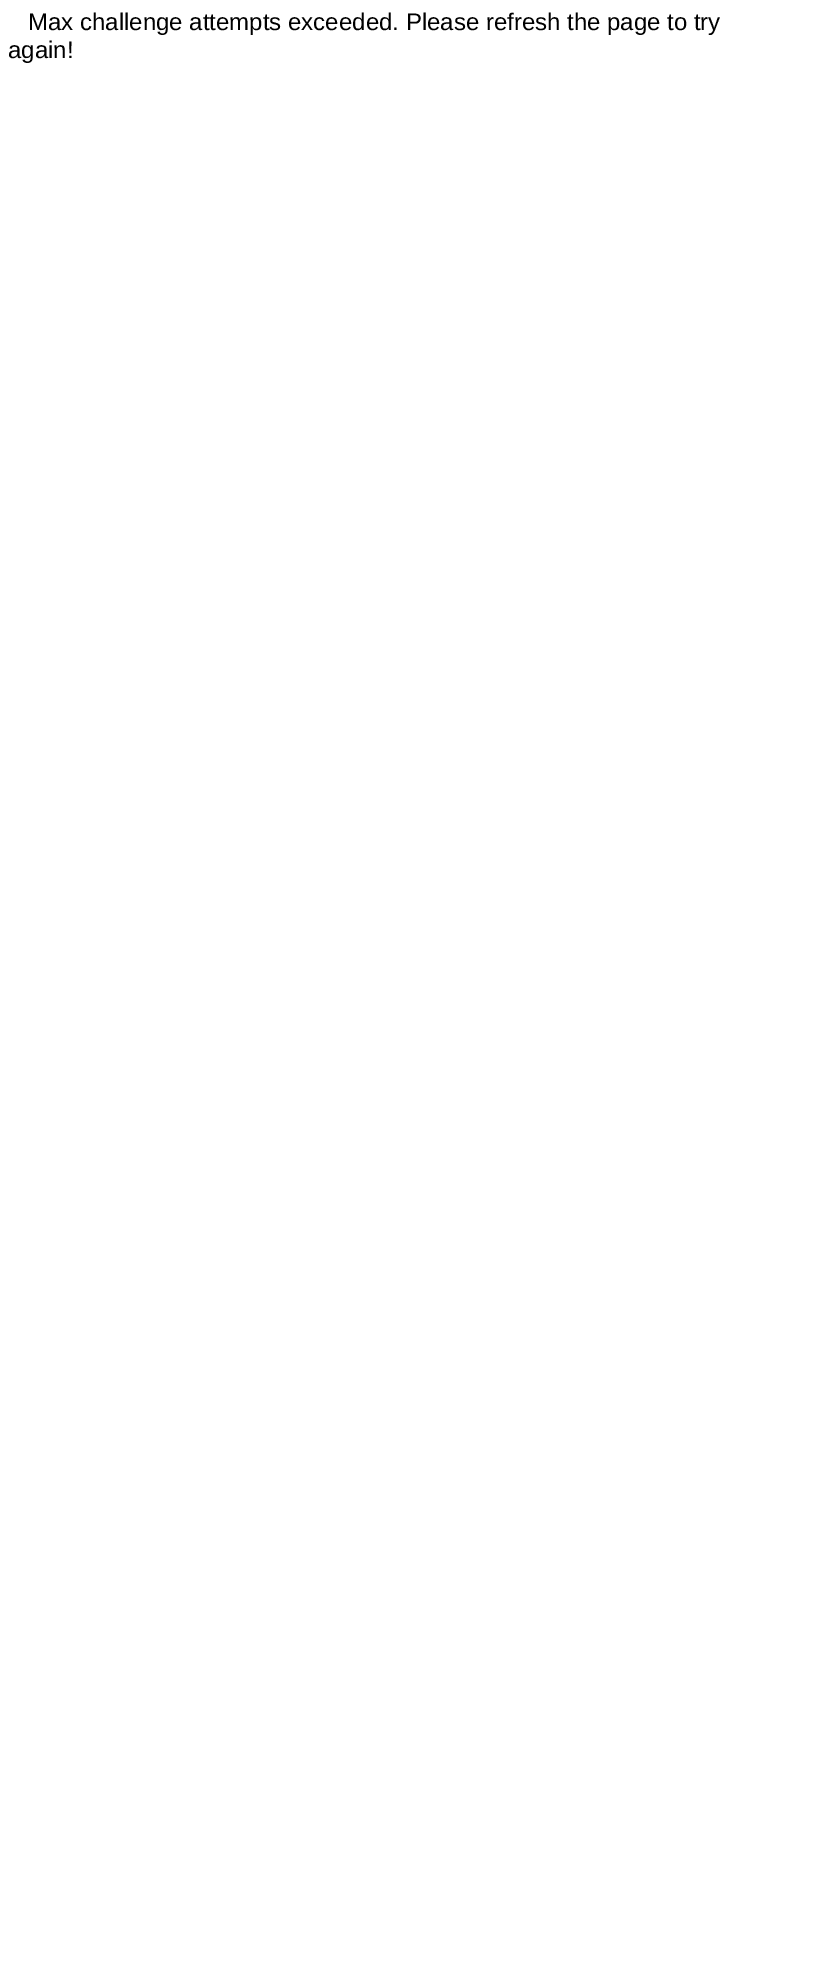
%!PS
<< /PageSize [820 1977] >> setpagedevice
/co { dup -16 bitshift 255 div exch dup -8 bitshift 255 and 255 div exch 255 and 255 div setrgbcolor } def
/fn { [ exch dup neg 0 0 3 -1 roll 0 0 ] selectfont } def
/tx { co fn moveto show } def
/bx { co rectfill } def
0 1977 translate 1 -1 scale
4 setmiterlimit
0 0 820 1977 16#FFFFFF bx
(Max challenge attempts exceeded. Please refresh the page to try) 28 30 /LiberationSans-Regular 24 16#000000 tx
(again!) 8 58 /LiberationSans-Regular 24 16#000000 tx
showpage
